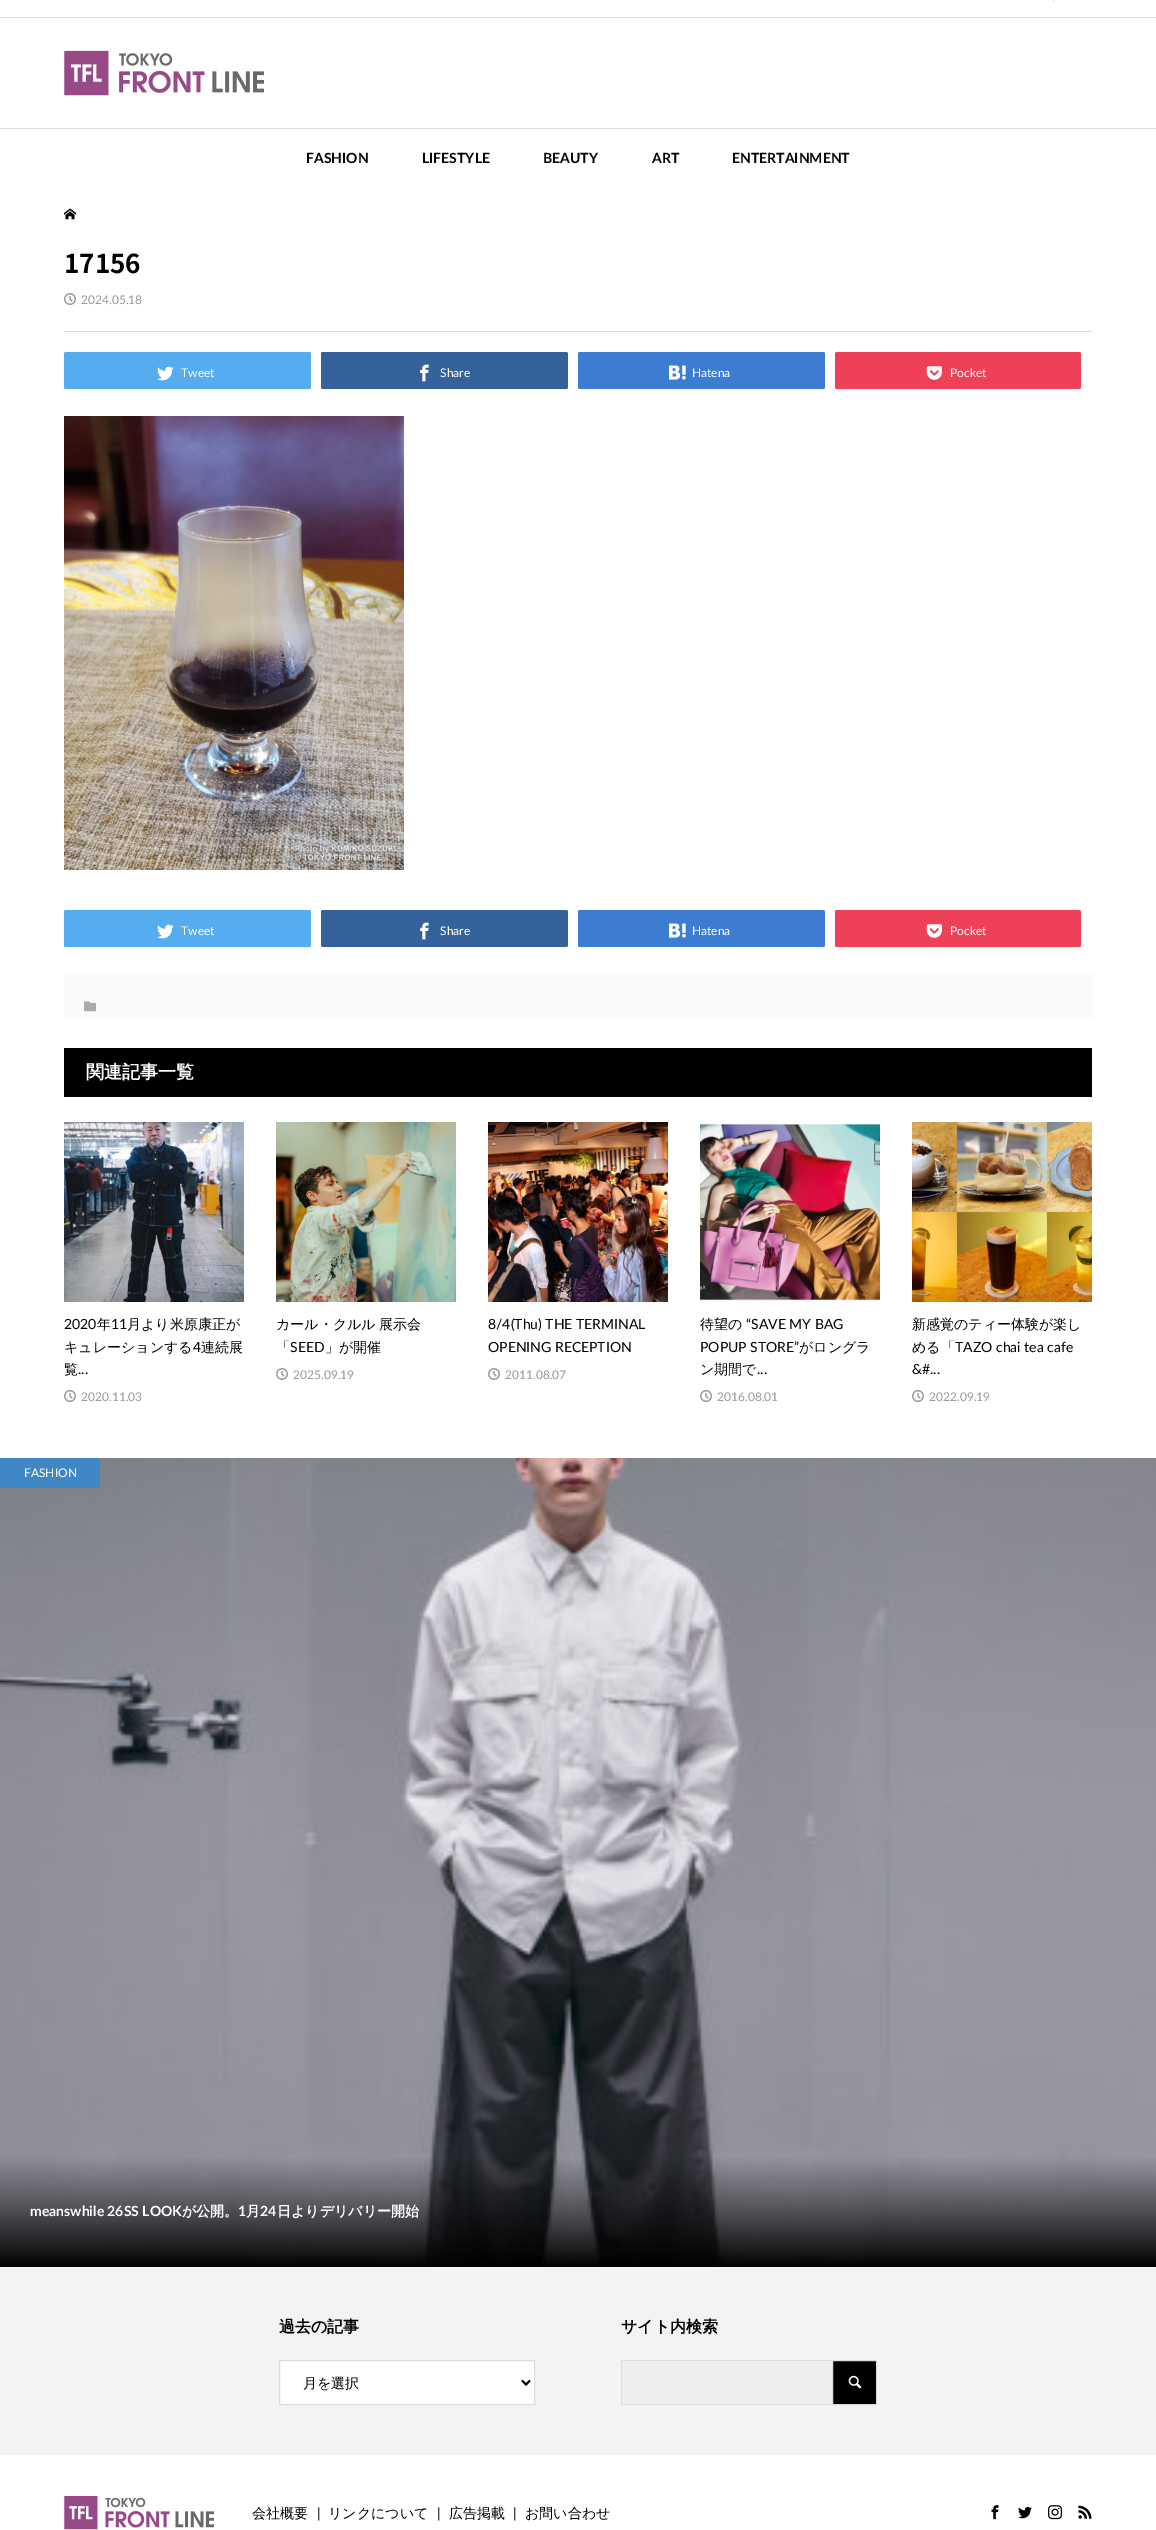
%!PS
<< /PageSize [1156 2530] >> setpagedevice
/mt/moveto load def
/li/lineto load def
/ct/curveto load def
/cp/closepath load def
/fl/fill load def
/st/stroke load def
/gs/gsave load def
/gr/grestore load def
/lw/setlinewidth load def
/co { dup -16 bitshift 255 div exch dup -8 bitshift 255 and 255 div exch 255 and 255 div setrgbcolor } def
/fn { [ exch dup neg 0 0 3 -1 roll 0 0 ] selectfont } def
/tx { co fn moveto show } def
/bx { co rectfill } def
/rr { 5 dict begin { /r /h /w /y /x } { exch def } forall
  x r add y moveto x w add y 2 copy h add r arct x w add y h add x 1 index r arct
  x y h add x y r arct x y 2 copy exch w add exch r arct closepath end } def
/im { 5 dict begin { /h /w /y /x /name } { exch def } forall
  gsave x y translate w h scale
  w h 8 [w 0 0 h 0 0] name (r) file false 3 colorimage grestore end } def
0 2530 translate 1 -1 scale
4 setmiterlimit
0 0 1156 2530 16#FFFFFF bx
0 17 1156 1 16#DDDDDD bx
1053 0 1 2 16#DDDDDD bx
(media/1.raw) 64 50 200 46 im
0 128 1156 1 16#DDDDDD bx
(media/2.raw) 64 208 12 12 im
64 331 1028 1 16#DDDDDD bx
(media/3.raw) 64 293 12 12 im
16#F7F7F7 co
64 387 mt 64 388 64 390 66 390 ct 309 390 li 311 389 li 311 387 li 311 388 310 389 309 389 ct 66 389 li 65 389 64 388 64 387 ct cp fl
16#55ACEE co
64 352 247 37 2 rr fl
(media/4.raw) 157 366 17 15 im
16#F7F7F7 co
321 387 mt 321 389 li 323 390 li 566 390 li 568 390 568 388 568 387 ct 568 388 567 389 566 389 ct 323 389 li 322 389 321 388 321 387 ct cp fl
16#35629A co
321 352 247 37 2 rr fl
(media/5.raw) 420 364 9 18 im
16#F7F7F7 co
578 387 mt 578 388 578 390 580 390 ct 823 390 li 825 389 li 825 387 li 825 388 824 389 823 389 ct 580 389 li 579 389 578 388 578 387 ct cp fl
16#3C7DD1 co
578 352 247 37 2 rr fl
(media/6.raw) 669 365 17 15 im
16#F7F7F7 co
835 387 mt 835 388 835 390 837 390 ct 1079 390 li 1081 389 li 1081 387 li 1081 388 1080 389 1079 389 ct 837 389 li 836 389 835 388 835 387 ct cp fl
16#EE4056 co
835 352 246 37 2 rr fl
(media/7.raw) 926 366 16 14 im
(media/8.raw) 64 416 340 454 im
16#F7F7F7 co
64 945 mt 64 946 64 948 66 948 ct 309 948 li 311 947 li 311 945 li 311 946 310 947 309 947 ct 66 947 li 65 947 64 946 64 945 ct cp fl
16#55ACEE co
64 910 247 37 2 rr fl
(media/4.raw) 157 924 17 15 im
16#F7F7F7 co
321 945 mt 321 947 li 323 948 li 566 948 li 568 948 568 946 568 945 ct 568 946 567 947 566 947 ct 323 947 li 322 947 321 946 321 945 ct cp fl
16#35629A co
321 910 247 37 2 rr fl
(media/5.raw) 420 922 9 18 im
16#F7F7F7 co
578 945 mt 578 947 li 580 948 li 823 948 li 825 948 825 946 825 945 ct 825 946 824 947 823 947 ct 580 947 li 579 947 578 946 578 945 ct cp fl
16#3C7DD1 co
578 910 247 37 2 rr fl
(media/6.raw) 669 923 17 15 im
16#F7F7F7 co
835 945 mt 835 946 835 948 837 948 ct 1079 948 li 1081 947 li 1081 945 li 1081 946 1080 947 1079 947 ct 837 947 li 836 947 835 946 835 945 ct cp fl
16#EE4056 co
835 910 246 37 2 rr fl
(media/7.raw) 926 924 16 14 im
64 974 1028 44 16#FAFAFA bx
(media/9.raw) 84 1001 12 11 im
64 1048 1028 49 16#000000 bx
(media/10.raw) 64 1122 180 180 im
(media/3.raw) 64 1390 12 12 im
(media/11.raw) 276 1122 180 180 im
(media/3.raw) 276 1368 12 12 im
(media/12.raw) 488 1122 180 180 im
(media/3.raw) 488 1368 12 12 im
(media/13.raw) 700 1124 180 177 im
(media/3.raw) 700 1390 12 12 im
(media/14.raw) 912 1122 180 180 im
(media/3.raw) 912 1390 12 12 im
(media/15.raw) 0 1458 1156 809 im
0 1458 100 30 16#3F88C5 bx
0 2267 1156 188 16#F3F3F3 bx
16#FFFFFF co
279.5 2360.5 mt 534.5 2360.5 li 534.5 2404.5 li 279.5 2404.5 li cp gs fl gr
16#DDDDDD co
st
16#000000 co
2 lw
522 2380.5 mt 526 2384.5 li 530 2380.5 li st
622 2361 210 43 16#EEEEEE bx
621 2360 211 1 16#DDDDDD bx
621 2404 211 1 16#DDDDDD bx
621 2360 1 45 16#DDDDDD bx
833 2361 43 43 16#000000 bx
(media/16.raw) 848 2375 14 14 im
16#DDDDDD co
1 lw
832.5 2360.5 44 44 rectstroke
(media/17.raw) 64 2496 150 34 im
(media/18.raw) 991 2505 8 15 im
(media/19.raw) 1018 2506 14 13 im
(media/20.raw) 1048 2505 14 15 im
(media/21.raw) 1078 2505 14 14 im
(FASHION) 306 163 /Lato-Bold 14 16#000000 tx
(LIFESTYLE) 422 163 /Lato-Bold 14 16#000000 tx
(BEAUTY) 543 163 /Lato-Bold 14 16#000000 tx
(ART) 652 163 /Lato-Bold 14 16#000000 tx
(ENTERTAINMENT) 732 163 /Lato-Bold 14 16#000000 tx
(17156) 64 273 /NotoSansJP-Bold 26 16#000000 tx
(2024.05.18) 81 304 /Lato-Regular 12 16#999999 tx
(Tweet) 181 377 /Lato-Regular 12 16#FFFFFF tx
(Share) 440 377 /Lato-Regular 12 16#FFFFFF tx
(Hatena) 692 377 /Lato-Regular 12 16#FFFFFF tx
(Pocket) 950 377 /Lato-Regular 12 16#FFFFFF tx
(Tweet) 181 935 /Lato-Regular 12 16#FFFFFF tx
(Share) 440 935 /Lato-Regular 12 16#FFFFFF tx
(Hatena) 692 935 /Lato-Regular 12 16#FFFFFF tx
(Pocket) 950 935 /Lato-Regular 12 16#FFFFFF tx
(関連記事一覧) 86 1078 /WenQuanYiZenHei-Bold 18 16#FFFFFF tx
(2020) 64 1329 /Lato-Regular 14 16#000000 tx
(年) 97 1329 /WenQuanYiZenHei-Medium 14 16#000000 tx
(11) 111 1329 /Lato-Regular 14 16#000000 tx
(月より米原康正が) 127 1329 /WenQuanYiZenHei-Medium 14 16#000000 tx
(キュレーションする) 64 1352 /WenQuanYiZenHei-Medium 14 16#000000 tx
(4) 193 1352 /Lato-Regular 14 16#000000 tx
(連続展) 201 1352 /WenQuanYiZenHei-Medium 14 16#000000 tx
(覧) 64 1374 /WenQuanYiZenHei-Medium 14 16#000000 tx
(...) 78 1374 /Lato-Regular 14 16#000000 tx
(2020.11.03) 81 1401 /Lato-Regular 12 16#999999 tx
/WenQuanYiZenHei-Medium 14 fn
16#000000 co
276 1329 mt -1 0 32 (カール・クルル 展示会) widthshow
(「) 276 1352 /WenQuanYiZenHei-Medium 14 16#000000 tx
(SEED) 290 1352 /Lato-Regular 14 16#000000 tx
(」が開催) 325 1352 /WenQuanYiZenHei-Medium 14 16#000000 tx
(2025.09.19) 293 1379 /Lato-Regular 12 16#999999 tx
(8/4\(Thu\) THE TERMINAL) 488 1329 /Lato-Regular 14 16#000000 tx
(OPENING RECEPTION) 488 1352 /Lato-Regular 14 16#000000 tx
(2011.08.07) 505 1379 /Lato-Regular 12 16#999999 tx
(待望の) 700 1329 /WenQuanYiZenHei-Medium 14 16#000000 tx
(“SAVE MY BAG) 746 1329 /Lato-Regular 14 16#000000 tx
(POPUP STORE”) 700 1352 /Lato-Regular 14 16#000000 tx
(がロングラ) 799 1352 /WenQuanYiZenHei-Medium 14 16#000000 tx
(ン期間で) 700 1374 /WenQuanYiZenHei-Medium 14 16#000000 tx
(...) 757 1374 /Lato-Regular 14 16#000000 tx
(2016.08.01) 717 1401 /Lato-Regular 12 16#999999 tx
(新感覚のティー体験が楽し) 912 1329 /WenQuanYiZenHei-Medium 14 16#000000 tx
(める「) 912 1352 /WenQuanYiZenHei-Medium 14 16#000000 tx
(TAZO chai tea cafe) 955 1352 /Lato-Regular 14 16#000000 tx
(&#...) 912 1374 /Lato-Regular 14 16#000000 tx
(2022.09.19) 929 1401 /Lato-Regular 12 16#999999 tx
(FASHION) 24 1477 /Lato-Regular 12 16#FFFFFF tx
(meanswhile 26SS LOOK) 30 2216 /Lato-Bold 14 16#FFFFFF tx
(が公開。) 182 2216 /WenQuanYiZenHei-Bold 14 16#FFFFFF tx
(1) 238 2216 /Lato-Bold 14 16#FFFFFF tx
(月) 246 2216 /WenQuanYiZenHei-Bold 14 16#FFFFFF tx
(24) 260 2216 /Lato-Bold 14 16#FFFFFF tx
(日よりデリバリー開始) 277 2216 /WenQuanYiZenHei-Bold 14 16#FFFFFF tx
(過去の記事) 279 2332 /WenQuanYiZenHei-Bold 16 16#000000 tx
(月を選択) 303 2388 /WenQuanYiZenHei-Medium 14 16#000000 tx
(サイト内検索) 621 2332 /WenQuanYiZenHei-Bold 16 16#000000 tx
(会社概要) 252 2518 /WenQuanYiZenHei-Medium 14 16#000000 tx
(|) 317 2518 /Lato-Regular 14 16#000000 tx
(リンクについて) 328 2518 /WenQuanYiZenHei-Medium 14 16#000000 tx
(|) 437 2518 /Lato-Regular 14 16#000000 tx
(広告掲載) 449 2518 /WenQuanYiZenHei-Medium 14 16#000000 tx
(|) 513 2518 /Lato-Regular 14 16#000000 tx
(お問い合わせ) 525 2518 /WenQuanYiZenHei-Medium 14 16#000000 tx
showpage
